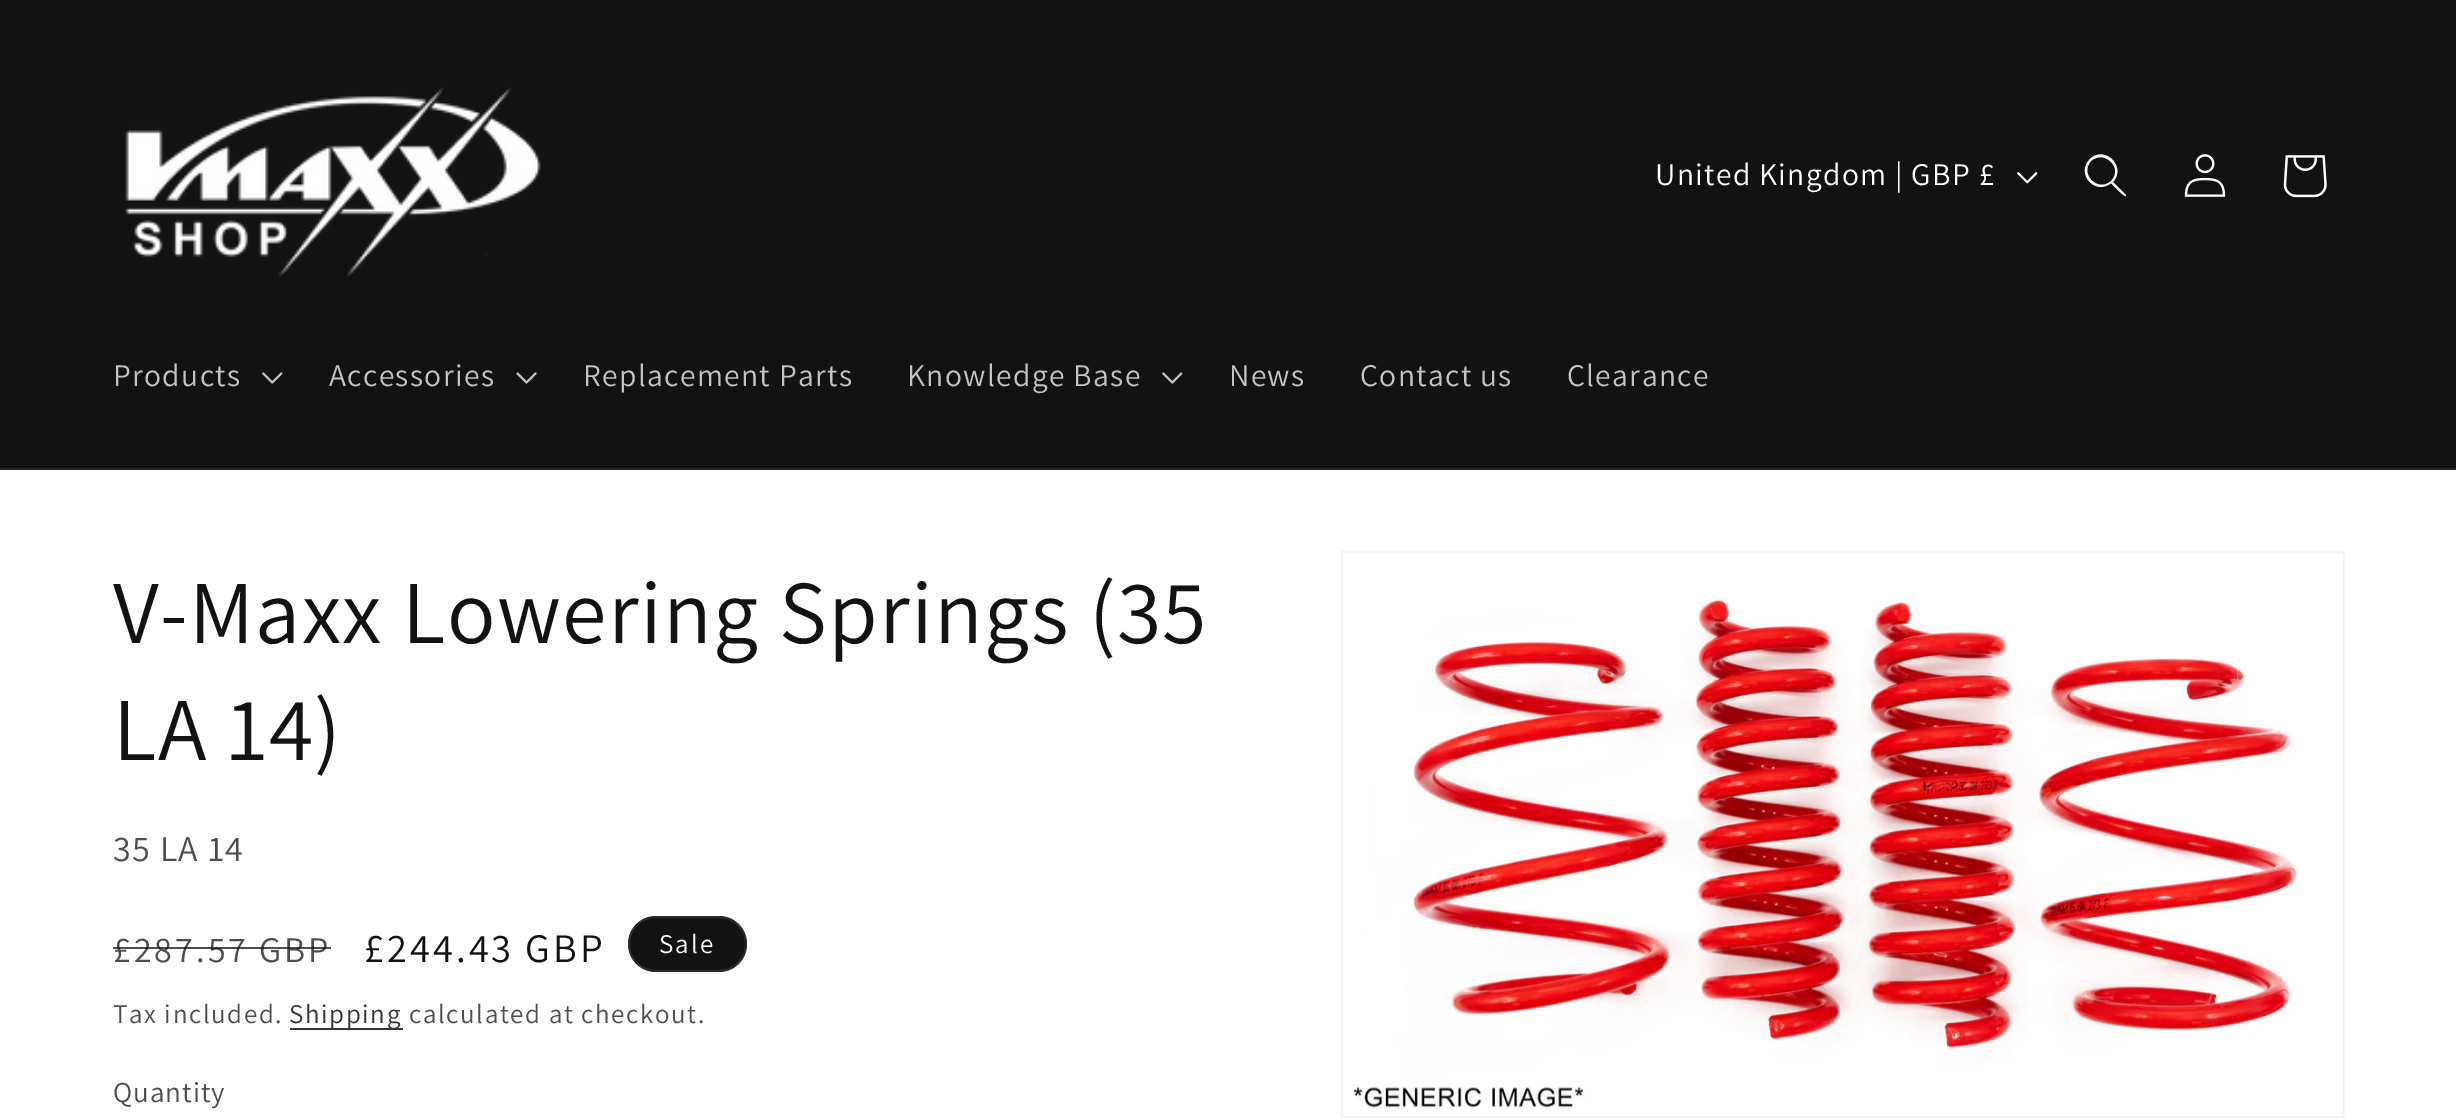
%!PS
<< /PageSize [2456 1119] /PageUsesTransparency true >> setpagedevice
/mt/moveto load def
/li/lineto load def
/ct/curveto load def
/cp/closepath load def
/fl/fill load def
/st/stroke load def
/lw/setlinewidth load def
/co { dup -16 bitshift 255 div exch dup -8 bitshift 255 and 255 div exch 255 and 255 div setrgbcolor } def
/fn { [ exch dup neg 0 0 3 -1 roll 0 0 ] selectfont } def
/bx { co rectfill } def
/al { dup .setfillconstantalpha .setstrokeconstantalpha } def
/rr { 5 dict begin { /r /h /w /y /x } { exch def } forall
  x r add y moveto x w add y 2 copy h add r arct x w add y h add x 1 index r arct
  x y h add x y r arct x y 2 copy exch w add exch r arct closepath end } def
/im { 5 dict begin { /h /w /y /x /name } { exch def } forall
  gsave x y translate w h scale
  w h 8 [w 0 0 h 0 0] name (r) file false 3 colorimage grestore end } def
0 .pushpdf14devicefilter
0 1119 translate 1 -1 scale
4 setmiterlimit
0 0 2456 1119 16#FFFFFF bx
0 0 2456 468 16#121212 bx
0 468 2456 2 16#252525 bx
(media/1.raw) 125 87 416 190 im
(media/2.raw) 2017 172 21 12 im
16#FFFFFF co
2111 181 mt 2098 193 2079 174 2091 161 ct 2104 149 2124 168 2111 181 ct cp 2111 183 mt 2096 196 2075 174 2090 159 ct 2104 145 2127 166 2113 182 ct 2126 195 li 2126 196 li 2124 197 2113 185 2111 183 ct cp eofill
(media/3.raw) 2184 154 42 43 im
(media/4.raw) 2283 155 44 43 im
(media/5.raw) 262 372 21 12 im
(media/6.raw) 516 372 21 12 im
(media/5.raw) 1162 372 21 12 im
16#121212 co
628 916 119 56 28 rr fl
0.1 al
16#FFFFFF co
2 lw
629 917 117 54 27 rr st
1 al
290 1028 113 2 16#363636 bx
16#F3F3F3 co
1342 552 1002 565 rectstroke
(media/7.raw) 1353 597 946 512 im
/Assistant-Regular 31.5 fn
16#FFFFFF co
1655 185 mt 1.35 0 (United Kingdom | GBP £) ashow
16#C4C4C4 co
113 386 mt 1.35 0 (Products) ashow
329 386 mt 1.35 0 (Accessories) ashow
583 386 mt 1.35 0 (Replacement Parts) ashow
907 386 mt 1.35 0 (Knowledge Base) ashow
1229 386 mt 1.35 0 (News) ashow
1360 386 mt 1.35 0 (Contact us) ashow
1567 386 mt 1.35 0 (Clearance) ashow
/Assistant-Regular 90 fn
16#121212 co
113 643 mt 1.35 0 (V-Maxx Lowering Springs \(35) ashow
113 760 mt 1.35 0 (LA 14\)) ashow
/Assistant-Regular 36 fn
16#4D4D4D co
113 861 mt 1.35 0 (35 LA 14) ashow
113 962 mt 3 0 (£287.57 GBP) ashow
0.75 al
113 947 218 2 16#121212 bx
/Assistant-Regular 40.5 fn
1 al
364 962 mt 3 0 (£244.43 GBP) ashow
/Assistant-Regular 27 fn
16#FFFFFF co
659 953 mt 2 0 (Sale) ashow
16#4D4D4D co
113 1023 mt 1.6 0 (Tax included.) ashow
16#353535 co
289 1023 mt 1.6 0 (Shipping) ashow
16#4D4D4D co
409 1023 mt 1.6 0 (calculated at checkout.) ashow
/Assistant-Regular 29 fn
113 1102 mt 1 0 (Quantity) ashow
.poppdf14devicefilter showpage
